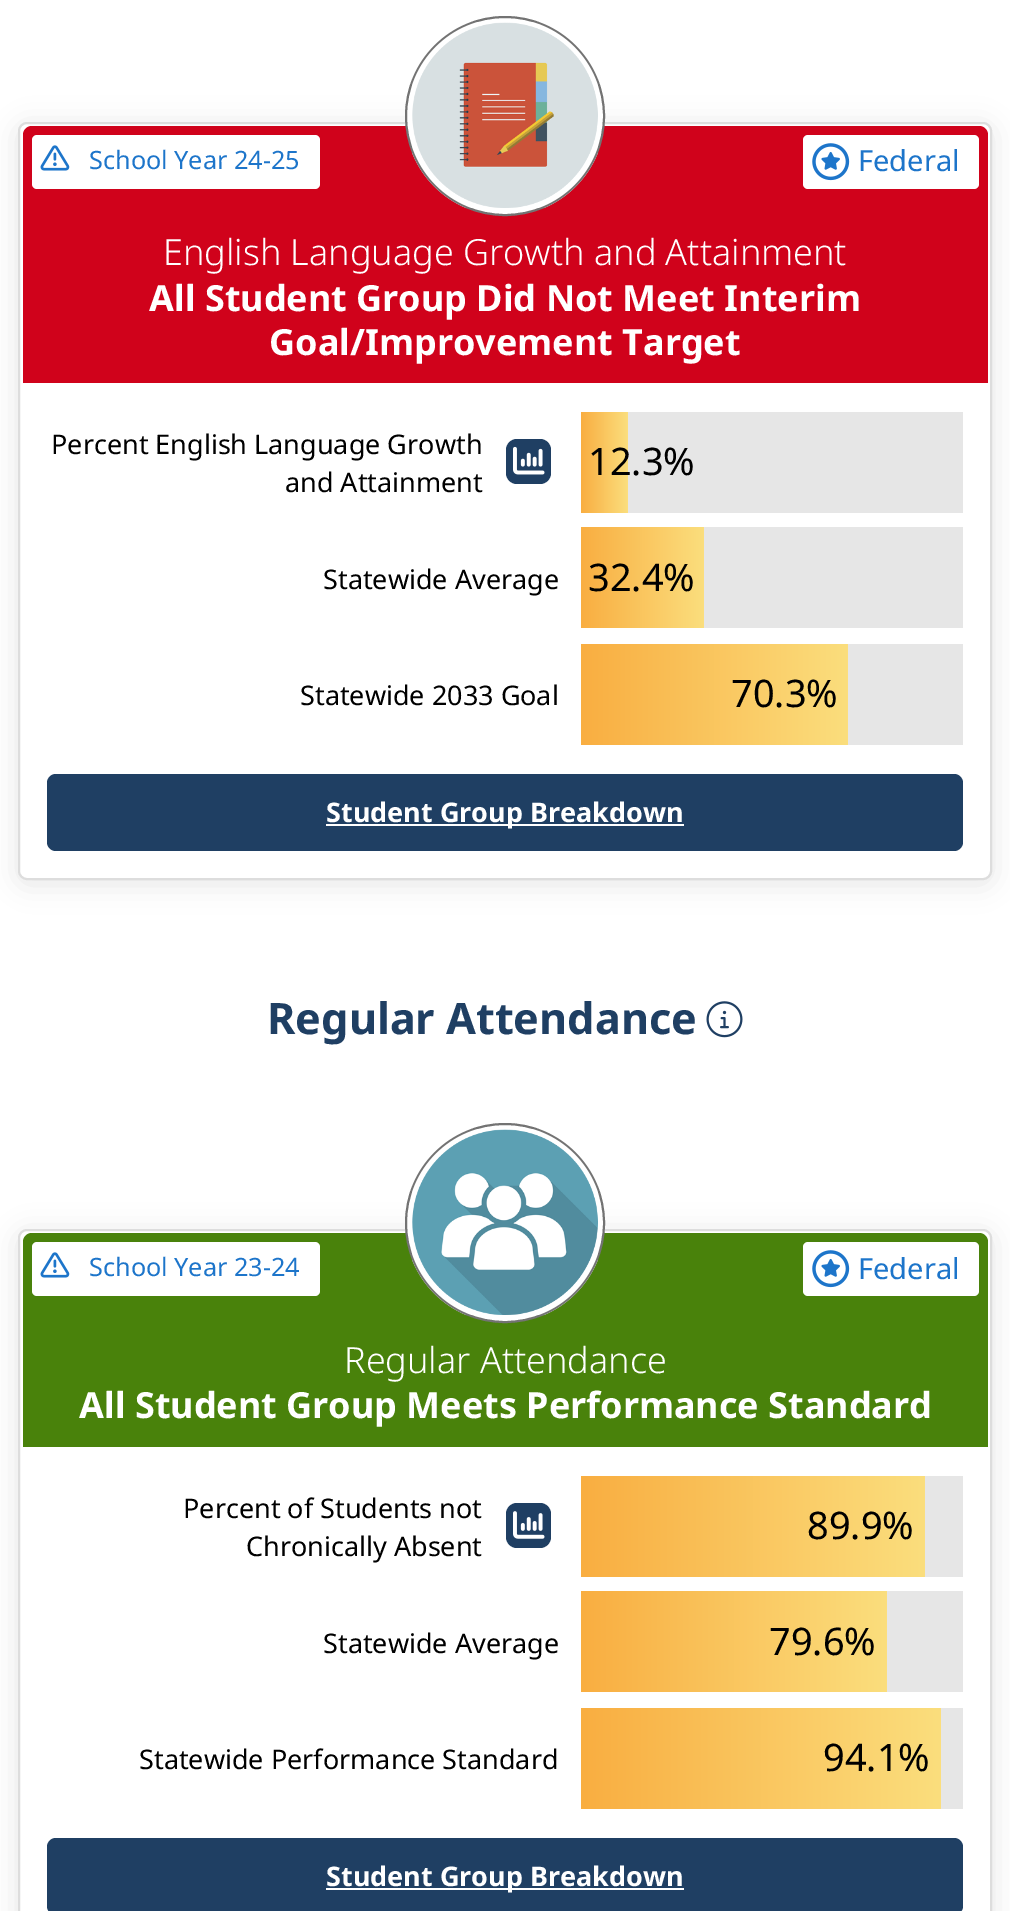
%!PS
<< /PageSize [1010 1911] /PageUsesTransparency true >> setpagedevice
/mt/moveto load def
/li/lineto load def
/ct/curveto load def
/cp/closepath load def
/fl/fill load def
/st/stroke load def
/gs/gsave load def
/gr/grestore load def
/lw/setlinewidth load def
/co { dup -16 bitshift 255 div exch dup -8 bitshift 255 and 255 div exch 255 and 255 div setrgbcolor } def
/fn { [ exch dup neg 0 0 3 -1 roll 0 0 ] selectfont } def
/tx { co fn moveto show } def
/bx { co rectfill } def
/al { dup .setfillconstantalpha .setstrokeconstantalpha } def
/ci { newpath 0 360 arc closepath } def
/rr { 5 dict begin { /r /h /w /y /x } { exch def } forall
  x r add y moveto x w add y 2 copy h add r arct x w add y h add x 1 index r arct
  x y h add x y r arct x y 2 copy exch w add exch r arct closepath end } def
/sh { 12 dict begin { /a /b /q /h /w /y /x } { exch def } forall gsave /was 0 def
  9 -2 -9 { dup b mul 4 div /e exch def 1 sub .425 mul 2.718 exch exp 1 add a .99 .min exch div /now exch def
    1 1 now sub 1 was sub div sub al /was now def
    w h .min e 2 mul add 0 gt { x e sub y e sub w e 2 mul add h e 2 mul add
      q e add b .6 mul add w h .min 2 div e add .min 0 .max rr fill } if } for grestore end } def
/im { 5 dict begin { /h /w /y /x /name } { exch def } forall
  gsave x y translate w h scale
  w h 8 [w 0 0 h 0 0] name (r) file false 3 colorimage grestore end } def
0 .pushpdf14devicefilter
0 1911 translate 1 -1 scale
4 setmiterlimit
0 0 1010 1911 16#FFFFFF bx
gs
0 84 mt 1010 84 li 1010 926 li 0 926 li cp 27 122 mt 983 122 li 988 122 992 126 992 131 ct 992 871 li 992 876 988 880 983 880 ct 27 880 li 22 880 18 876 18 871 ct 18 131 li 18 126 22 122 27 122 ct cp eoclip newpath
16#000000 co
18 126 974 758 9 13.5 .1 sh
gr
16#DDDDDD co
2 lw
19 123 972 756 8 rr st
16#D0021B co
32 126 mt 979 126 li 984 126 988 130 988 135 ct 988 383 li 23 383 li 23 135 li 23 130 27 126 32 126 ct cp fl
16#FFFFFF co
505 116 99 ci gs fl gr
16#737373 co
st
(media/1.raw) 412 22 186 186 im
16#FFFFFF co
32 135 288 54 5 rr fl
(media/2.raw) 40 145 30 26 im
803 135 176 54 5 rr fl
(media/3.raw) 812 143 38 38 im
16#1F3F63 co
506 439 45 45 11 rr fl
(media/4.raw) 513 446 32 29 im
628 412 335 101 16#E6E6E6 bx
gs 581 412 mt 628 412 li 628 513 li 581 513 li cp clip newpath
<< /ShadingType 2 /ColorSpace /DeviceRGB /Coords [581 462 628 462] /Extend [true true] /Function << /FunctionType 2 /Domain [0 1] /C0 [.976 .682 .255] /C1 [.984 .871 .49] /N 1 >> >> shfill gr
704 527 259 101 16#E6E6E6 bx
gs 581 527 mt 704 527 li 704 628 li 581 628 li cp clip newpath
<< /ShadingType 2 /ColorSpace /DeviceRGB /Coords [581 577 704 577] /Extend [true true] /Function << /FunctionType 2 /Domain [0 1] /C0 [.976 .682 .255] /C1 [.984 .871 .49] /N 1 >> >> shfill gr
848 644 115 101 16#E6E6E6 bx
gs 581 644 mt 848 644 li 848 745 li 581 745 li cp clip newpath
<< /ShadingType 2 /ColorSpace /DeviceRGB /Coords [581 694 848 694] /Extend [true true] /Function << /FunctionType 2 /Domain [0 1] /C0 [.976 .682 .255] /C1 [.984 .871 .49] /N 1 >> >> shfill gr
16#1F3F63 co
47 774 916 77 9 rr fl
326 824 358 2 16#FFFFFF bx
(media/5.raw) 706 1001 37 37 im
gs
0 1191 mt 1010 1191 li 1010 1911 li 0 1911 li cp 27 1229 mt 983 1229 li 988 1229 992 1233 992 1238 ct 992 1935 li 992 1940 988 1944 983 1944 ct 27 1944 li 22 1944 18 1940 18 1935 ct 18 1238 li 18 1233 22 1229 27 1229 ct cp eoclip newpath
16#000000 co
18 1233 974 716 9 13.5 .1 sh
gr
16#DDDDDD co
19 1230 972 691 8 rr st
16#49820B co
32 1233 mt 979 1233 li 984 1233 988 1237 988 1242 ct 988 1447 li 23 1447 li 23 1242 li 23 1237 27 1233 32 1233 ct cp fl
16#FFFFFF co
505 1223 99 ci gs fl gr
16#737373 co
st
(media/6.raw) 412 1129 186 186 im
16#FFFFFF co
32 1242 288 54 5 rr fl
(media/2.raw) 40 1252 30 26 im
803 1242 176 54 5 rr fl
(media/3.raw) 812 1250 38 38 im
16#1F3F63 co
506 1503 45 45 11 rr fl
(media/7.raw) 513 1511 32 28 im
925 1476 38 101 16#E6E6E6 bx
gs 581 1476 mt 925 1476 li 925 1577 li 581 1577 li cp clip newpath
<< /ShadingType 2 /ColorSpace /DeviceRGB /Coords [581 1527 925 1527] /Extend [true true] /Function << /FunctionType 2 /Domain [0 1] /C0 [.976 .682 .255] /C1 [.984 .871 .49] /N 1 >> >> shfill gr
887 1591 76 101 16#E6E6E6 bx
gs 581 1591 mt 887 1591 li 887 1692 li 581 1692 li cp clip newpath
<< /ShadingType 2 /ColorSpace /DeviceRGB /Coords [581 1641 887 1641] /Extend [true true] /Function << /FunctionType 2 /Domain [0 1] /C0 [.976 .682 .255] /C1 [.984 .871 .49] /N 1 >> >> shfill gr
941 1708 22 101 16#E6E6E6 bx
gs 581 1708 mt 941 1708 li 941 1809 li 581 1809 li cp clip newpath
<< /ShadingType 2 /ColorSpace /DeviceRGB /Coords [581 1758 941 1758] /Extend [true true] /Function << /FunctionType 2 /Domain [0 1] /C0 [.976 .682 .255] /C1 [.984 .871 .49] /N 1 >> >> shfill gr
16#1F3F63 co
47 1838 916 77 9 rr fl
326 1888 358 2 16#FFFFFF bx
(School Year 24-25) 89 169 /NotoSans-Regular 25.25 16#1D75CA tx
(Federal) 858 171 /NotoSans-Regular 29 16#1D75CA tx
(English Language Growth and Attainment) 163 265 /NotoSans-Light 36 16#FFFFFF tx
(All Student Group Did Not Meet Interim) 149 311 /NotoSans-Bold 36 16#FFFFFF tx
(Goal/Improvement Target) 269 355 /NotoSans-Bold 36 16#FFFFFF tx
(Percent English Language Growth) 51 454 /NotoSans-Regular 27 16#000000 tx
(and Attainment) 285 492 /NotoSans-Regular 27 16#000000 tx
(12.3%) 588 475 /NotoSans-Regular 38 16#000000 tx
(Statewide Average) 323 589 /NotoSans-Regular 27 16#000000 tx
(32.4%) 588 591 /NotoSans-Regular 38 16#000000 tx
(Statewide 2033 Goal) 300 705 /NotoSans-Regular 27 16#000000 tx
(70.3%) 731 707 /NotoSans-Regular 38 16#000000 tx
(Student Group Breakdown) 326 822 /NotoSans-Bold 27 16#FFFFFF tx
(Regular Attendance) 267 1034 /NotoSans-Bold 43.25 16#1F3F63 tx
(School Year 23-24) 89 1276 /NotoSans-Regular 25.25 16#1D75CA tx
(Federal) 858 1279 /NotoSans-Regular 29 16#1D75CA tx
(Regular Attendance) 344 1373 /NotoSans-Light 36 16#FFFFFF tx
(All Student Group Meets Performance Standard) 79 1418 /NotoSans-Bold 36 16#FFFFFF tx
(Percent of Students not) 183 1518 /NotoSans-Regular 27 16#000000 tx
(Chronically Absent) 246 1556 /NotoSans-Regular 27 16#000000 tx
(89.9%) 807 1539 /NotoSans-Regular 38 16#000000 tx
(Statewide Average) 323 1653 /NotoSans-Regular 27 16#000000 tx
(79.6%) 769 1655 /NotoSans-Regular 38 16#000000 tx
(Statewide Performance Standard) 139 1769 /NotoSans-Regular 27 16#000000 tx
(94.1%) 823 1771 /NotoSans-Regular 38 16#000000 tx
(Student Group Breakdown) 326 1886 /NotoSans-Bold 27 16#FFFFFF tx
.poppdf14devicefilter showpage
